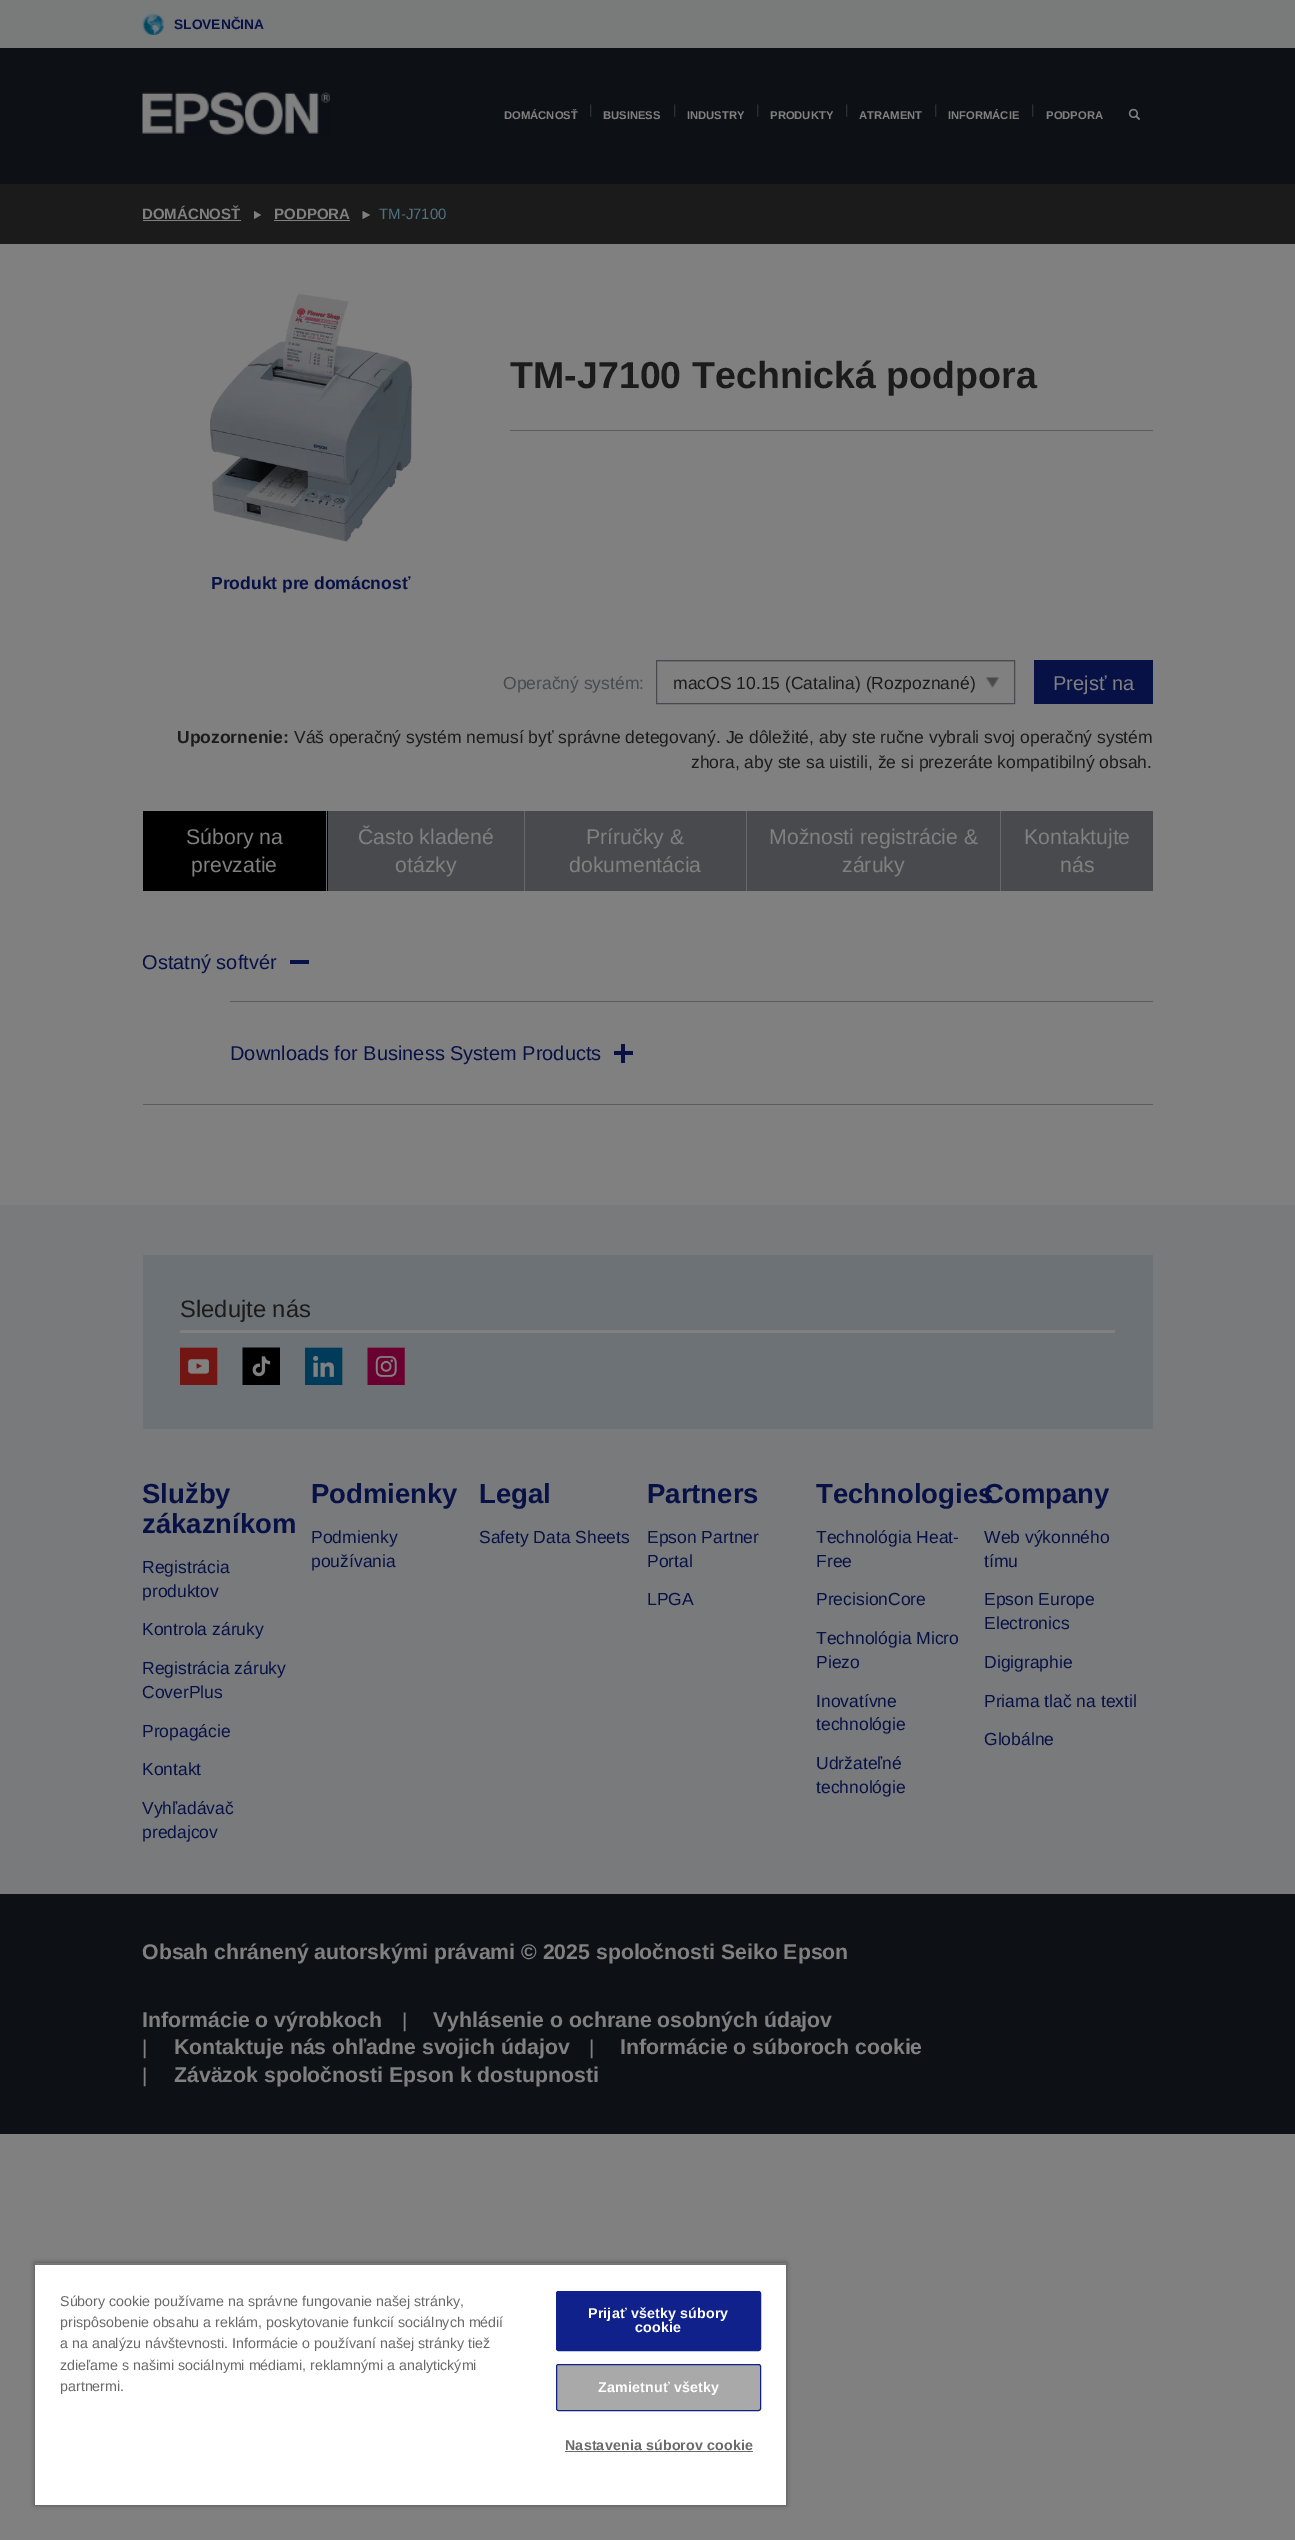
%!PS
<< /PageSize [1295 2540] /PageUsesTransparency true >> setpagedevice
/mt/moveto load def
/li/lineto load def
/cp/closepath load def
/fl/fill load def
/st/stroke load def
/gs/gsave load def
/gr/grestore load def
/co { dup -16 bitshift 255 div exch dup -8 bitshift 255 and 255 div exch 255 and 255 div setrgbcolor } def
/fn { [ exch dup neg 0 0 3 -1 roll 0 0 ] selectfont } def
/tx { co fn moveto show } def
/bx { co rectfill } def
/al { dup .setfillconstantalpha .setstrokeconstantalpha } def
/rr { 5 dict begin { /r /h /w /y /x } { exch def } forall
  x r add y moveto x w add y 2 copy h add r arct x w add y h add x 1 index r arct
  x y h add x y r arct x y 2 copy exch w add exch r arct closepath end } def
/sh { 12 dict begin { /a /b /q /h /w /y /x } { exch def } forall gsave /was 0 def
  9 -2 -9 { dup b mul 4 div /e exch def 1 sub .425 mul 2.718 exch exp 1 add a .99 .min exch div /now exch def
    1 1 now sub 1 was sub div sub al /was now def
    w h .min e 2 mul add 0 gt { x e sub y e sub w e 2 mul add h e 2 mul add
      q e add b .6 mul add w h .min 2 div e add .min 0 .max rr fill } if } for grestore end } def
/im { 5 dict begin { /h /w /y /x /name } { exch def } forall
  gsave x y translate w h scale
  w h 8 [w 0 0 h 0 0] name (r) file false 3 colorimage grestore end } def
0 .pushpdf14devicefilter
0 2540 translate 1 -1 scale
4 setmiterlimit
0 0 1295 2540 16#808080 bx
0 0 1295 48 16#797B7B bx
(media/1.raw) 142 13 22 22 im
0 48 1295 136 16#0D1116 bx
(media/2.raw) 142 92 188 44 im
(media/3.raw) 1128 108 12 12 im
0 184 1295 60 16#1B1B1B bx
143 220 98 1 16#808080 bx
254 219 mt 254 211 li 261 215 li cp fl
274 220 76 1 16#808080 bx
362.5 219 mt 362.5 211 li 370 215 li cp fl
510 430 643 1 16#5B5C5D bx
(media/4.raw) 210 293 202 249 im
(media/5.raw) 986 677 13 11 im
658 661 356 1 16#767676 bx
16#484A4E co
656.5 660.5 358 43 rectstroke
1034 660 119 44 16#081146 bx
328 811 825 80 16#484A4E bx
143 811 185 80 16#000000 bx
326 811 1 80 16#66686E bx
524 811 1 80 16#66686E bx
746 811 1 80 16#66686E bx
1000 811 1 80 16#66686E bx
143 1104 1010 1 16#5E5C58 bx
290 960 19 4 16#081146 bx
230 1001 923 1 16#5E5C58 bx
621 1044 4 19 16#081146 bx
614 1051 19 4 16#081146 bx
0 1205 1295 689 16#797A7B bx
143 1255 1010 174 16#6D7276 bx
180 1330 935 3 16#808080 bx
(media/6.raw) 180 1347 38 38 im
(media/7.raw) 242 1347 38 38 im
(media/8.raw) 305 1347 38 38 im
(media/9.raw) 367 1347 38 38 im
0 1894 1295 240 16#0D1116 bx
gs
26 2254 mt 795 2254 li 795 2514 li 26 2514 li cp 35 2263 mt 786 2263 li 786 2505 li 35 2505 li cp eoclip newpath
16#000000 co
35 2263 751 242 0 2.5 .35 sh
gr
gs
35 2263 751 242 rectclip
16#000000 co
35 2265 751 240 0 2.5 .2 sh
gr
35 2265 751 240 16#FFFFFF bx
16#10218B co
556.5 2291.5 204 59 2 rr gs fl gr
st
16#A9A9A9 co
556.5 2364.5 204 46 2 rr gs fl gr
16#10218B co
st
565 2451 188 1 16#696969 bx
(SLOVENČINA) 174 29 /LiberationSans-Bold 13.75 16#081146 tx
(DOMÁCNOSŤ) 504 119 /LiberationSans-Bold 11.25 16#808080 tx
(|) 589 114 /LiberationSans-Regular 13 16#383838 tx
(BUSINESS) 603 119 /LiberationSans-Bold 11.25 16#808080 tx
(|) 673 114 /LiberationSans-Regular 13 16#383838 tx
(INDUSTRY) 687 119 /LiberationSans-Bold 11.25 16#808080 tx
(|) 756 114 /LiberationSans-Regular 13 16#383838 tx
(PRODUKTY) 770 119 /LiberationSans-Bold 11.25 16#808080 tx
(|) 845 114 /LiberationSans-Regular 13 16#383838 tx
(ATRAMENT) 859 119 /LiberationSans-Bold 11.25 16#808080 tx
(|) 934 114 /LiberationSans-Regular 13 16#383838 tx
(INFORMÁCIE) 948 119 /LiberationSans-Bold 11.25 16#808080 tx
(|) 1031 114 /LiberationSans-Regular 13 16#383838 tx
(PODPORA) 1046 119 /LiberationSans-Bold 11.25 16#808080 tx
(DOMÁCNOSŤ) 142 219 /LiberationSans-Bold 15 16#808080 tx
(PODPORA) 274 219 /LiberationSans-Bold 15 16#808080 tx
(TM-J7100) 379 219 /LiberationSans-Regular 15 16#4F7080 tx
(TM-J7100 Technická podpora) 510 388 /LiberationSans-Bold 37.6 16#1B1B1B tx
(Produkt pre domácnosť) 211 589 /LiberationSans-Bold 17.5 16#081146 tx
(Operačný systém:) 503 689 /LiberationSans-Regular 17.5 16#484A4D tx
(macOS 10.15 \(Catalina\) \(Rozpoznané\)) 673 689 /LiberationSans-Regular 17.5 16#1B1B1B tx
(Prejsť na) 1053 690 /LiberationSans-Regular 20 16#808080 tx
(Upozornenie:) 177 743 /LiberationSans-Bold 17.5 16#1B1B1B tx
(Váš operačný systém nemusí byť správne detegovaný. Je dôležité, aby ste ručne vybrali svoj operačný systém) 294 743 /LiberationSans-Regular 17.5 16#1B1B1B tx
(zhora, aby ste sa uistili, že si prezeráte kompatibilný obsah.) 691 768 /LiberationSans-Regular 17.5 16#1B1B1B tx
(Súbory na) 186 844 /LiberationSans-Regular 21.25 16#808080 tx
(prevzatie) 191 872 /LiberationSans-Regular 21.25 16#808080 tx
(Často kladené) 358 844 /LiberationSans-Regular 21.25 16#808080 tx
(otázky) 395 872 /LiberationSans-Regular 21.25 16#808080 tx
(Príručky &) 586 844 /LiberationSans-Regular 21.25 16#808080 tx
(dokumentácia) 569 872 /LiberationSans-Regular 21.25 16#808080 tx
(Možnosti registrácie &) 769 844 /LiberationSans-Regular 21.25 16#808080 tx
(záruky) 842 872 /LiberationSans-Regular 21.25 16#808080 tx
(Kontaktujte) 1024 844 /LiberationSans-Regular 21.25 16#808080 tx
(nás) 1060 872 /LiberationSans-Regular 21.25 16#808080 tx
(Ostatný softvér) 142 969 /LiberationSans-Regular 20 16#081146 tx
(Downloads for Business System Products) 230 1060 /LiberationSans-Regular 20 16#081146 tx
(Sledujte nás) 180 1317 /LiberationSans-Regular 23.75 16#1B1B1B tx
(Služby) 142 1503 /LiberationSans-Bold 27.5 16#081146 tx
(zákazníkom) 142 1533 /LiberationSans-Bold 27.5 16#081146 tx
(Registrácia) 142 1573 /LiberationSans-Regular 17.5 16#081146 tx
(produktov) 142 1597 /LiberationSans-Regular 17.5 16#081146 tx
(Kontrola záruky) 142 1635 /LiberationSans-Regular 17.5 16#081146 tx
(Registrácia záruky) 142 1674 /LiberationSans-Regular 17.5 16#081146 tx
(CoverPlus) 142 1698 /LiberationSans-Regular 17.5 16#081146 tx
(Propagácie) 142 1737 /LiberationSans-Regular 17.5 16#081146 tx
(Kontakt) 142 1775 /LiberationSans-Regular 17.5 16#081146 tx
(Vyhľadávač) 142 1814 /LiberationSans-Regular 17.5 16#081146 tx
(predajcov) 142 1838 /LiberationSans-Regular 17.5 16#081146 tx
(Podmienky) 311 1503 /LiberationSans-Bold 27.5 16#081146 tx
(Podmienky) 311 1543 /LiberationSans-Regular 17.5 16#081146 tx
(používania) 311 1567 /LiberationSans-Regular 17.5 16#081146 tx
(Legal) 479 1503 /LiberationSans-Bold 27.5 16#081146 tx
(Safety Data Sheets) 479 1543 /LiberationSans-Regular 17.5 16#081146 tx
(Partners) 647 1503 /LiberationSans-Bold 27.5 16#081146 tx
(Epson Partner) 647 1543 /LiberationSans-Regular 17.5 16#081146 tx
(Portal) 647 1567 /LiberationSans-Regular 17.5 16#081146 tx
(LPGA) 647 1605 /LiberationSans-Regular 17.5 16#081146 tx
(Technologies) 816 1503 /LiberationSans-Bold 27.5 16#081146 tx
(Technológia Heat-) 816 1543 /LiberationSans-Regular 17.5 16#081146 tx
(Free) 816 1567 /LiberationSans-Regular 17.5 16#081146 tx
(PrecisionCore) 816 1605 /LiberationSans-Regular 17.5 16#081146 tx
(Technológia Micro) 816 1644 /LiberationSans-Regular 17.5 16#081146 tx
(Piezo) 816 1668 /LiberationSans-Regular 17.5 16#081146 tx
(Inovatívne) 816 1707 /LiberationSans-Regular 17.5 16#081146 tx
(technológie) 816 1730 /LiberationSans-Regular 17.5 16#081146 tx
(Udržateľné) 816 1769 /LiberationSans-Regular 17.5 16#081146 tx
(technológie) 816 1793 /LiberationSans-Regular 17.5 16#081146 tx
(Company) 984 1503 /LiberationSans-Bold 27.5 16#081146 tx
(Web výkonného) 984 1543 /LiberationSans-Regular 17.5 16#081146 tx
(tímu) 984 1567 /LiberationSans-Regular 17.5 16#081146 tx
(Epson Europe) 984 1605 /LiberationSans-Regular 17.5 16#081146 tx
(Electronics) 984 1629 /LiberationSans-Regular 17.5 16#081146 tx
(Digigraphie) 984 1668 /LiberationSans-Regular 17.5 16#081146 tx
(Priama tlač na textil) 984 1707 /LiberationSans-Regular 17.5 16#081146 tx
(Globálne) 984 1745 /LiberationSans-Regular 17.5 16#081146 tx
(Obsah chránený autorskými právami © 2025 spoločnosti Seiko Epson) 142 1959 /LiberationSans-Bold 21.25 16#808080 tx
(Informácie o výrobkoch) 142 2027 /LiberationSans-Bold 21.25 16#808080 tx
(|) 402 2027 /LiberationSans-Regular 20 16#808080 tx
(Vyhlásenie o ochrane osobných údajov) 433 2027 /LiberationSans-Bold 21.25 16#808080 tx
(|) 142 2054 /LiberationSans-Regular 20 16#808080 tx
(Kontaktuje nás ohľadne svojich údajov) 174 2054 /LiberationSans-Bold 21.25 16#808080 tx
(|) 589 2054 /LiberationSans-Regular 20 16#808080 tx
(Informácie o súboroch cookie) 620 2054 /LiberationSans-Bold 21.25 16#808080 tx
(|) 142 2082 /LiberationSans-Regular 20 16#808080 tx
(Záväzok spoločnosti Epson k dostupnosti) 174 2082 /LiberationSans-Bold 21.25 16#808080 tx
(Súbory cookie používame na správne fungovanie našej stránky,) 60 2306 /LiberationSans-Regular 14.25 16#696969 tx
(prispôsobenie obsahu a reklám, poskytovanie funkcií sociálnych médií) 60 2327 /LiberationSans-Regular 14.25 16#696969 tx
(a na analýzu návštevnosti. Informácie o používaní našej stránky tiež) 60 2348 /LiberationSans-Regular 14.25 16#696969 tx
(zdieľame s našimi sociálnymi médiami, reklamnými a analytickými) 60 2370 /LiberationSans-Regular 14.25 16#696969 tx
(partnermi.) 60 2391 /LiberationSans-Regular 14.25 16#696969 tx
/LiberationSans-Bold 14.25 fn
16#FFFFFF co
588 2318 mt .15 0 (Prijať všetky súbory) ashow
635 2332 mt .15 0 (cookie) ashow
598 2392 mt .15 0 (Zamietnuť všetky) ashow
16#696969 co
565 2450 mt .15 0 (Nastavenia súborov cookie) ashow
.poppdf14devicefilter showpage
